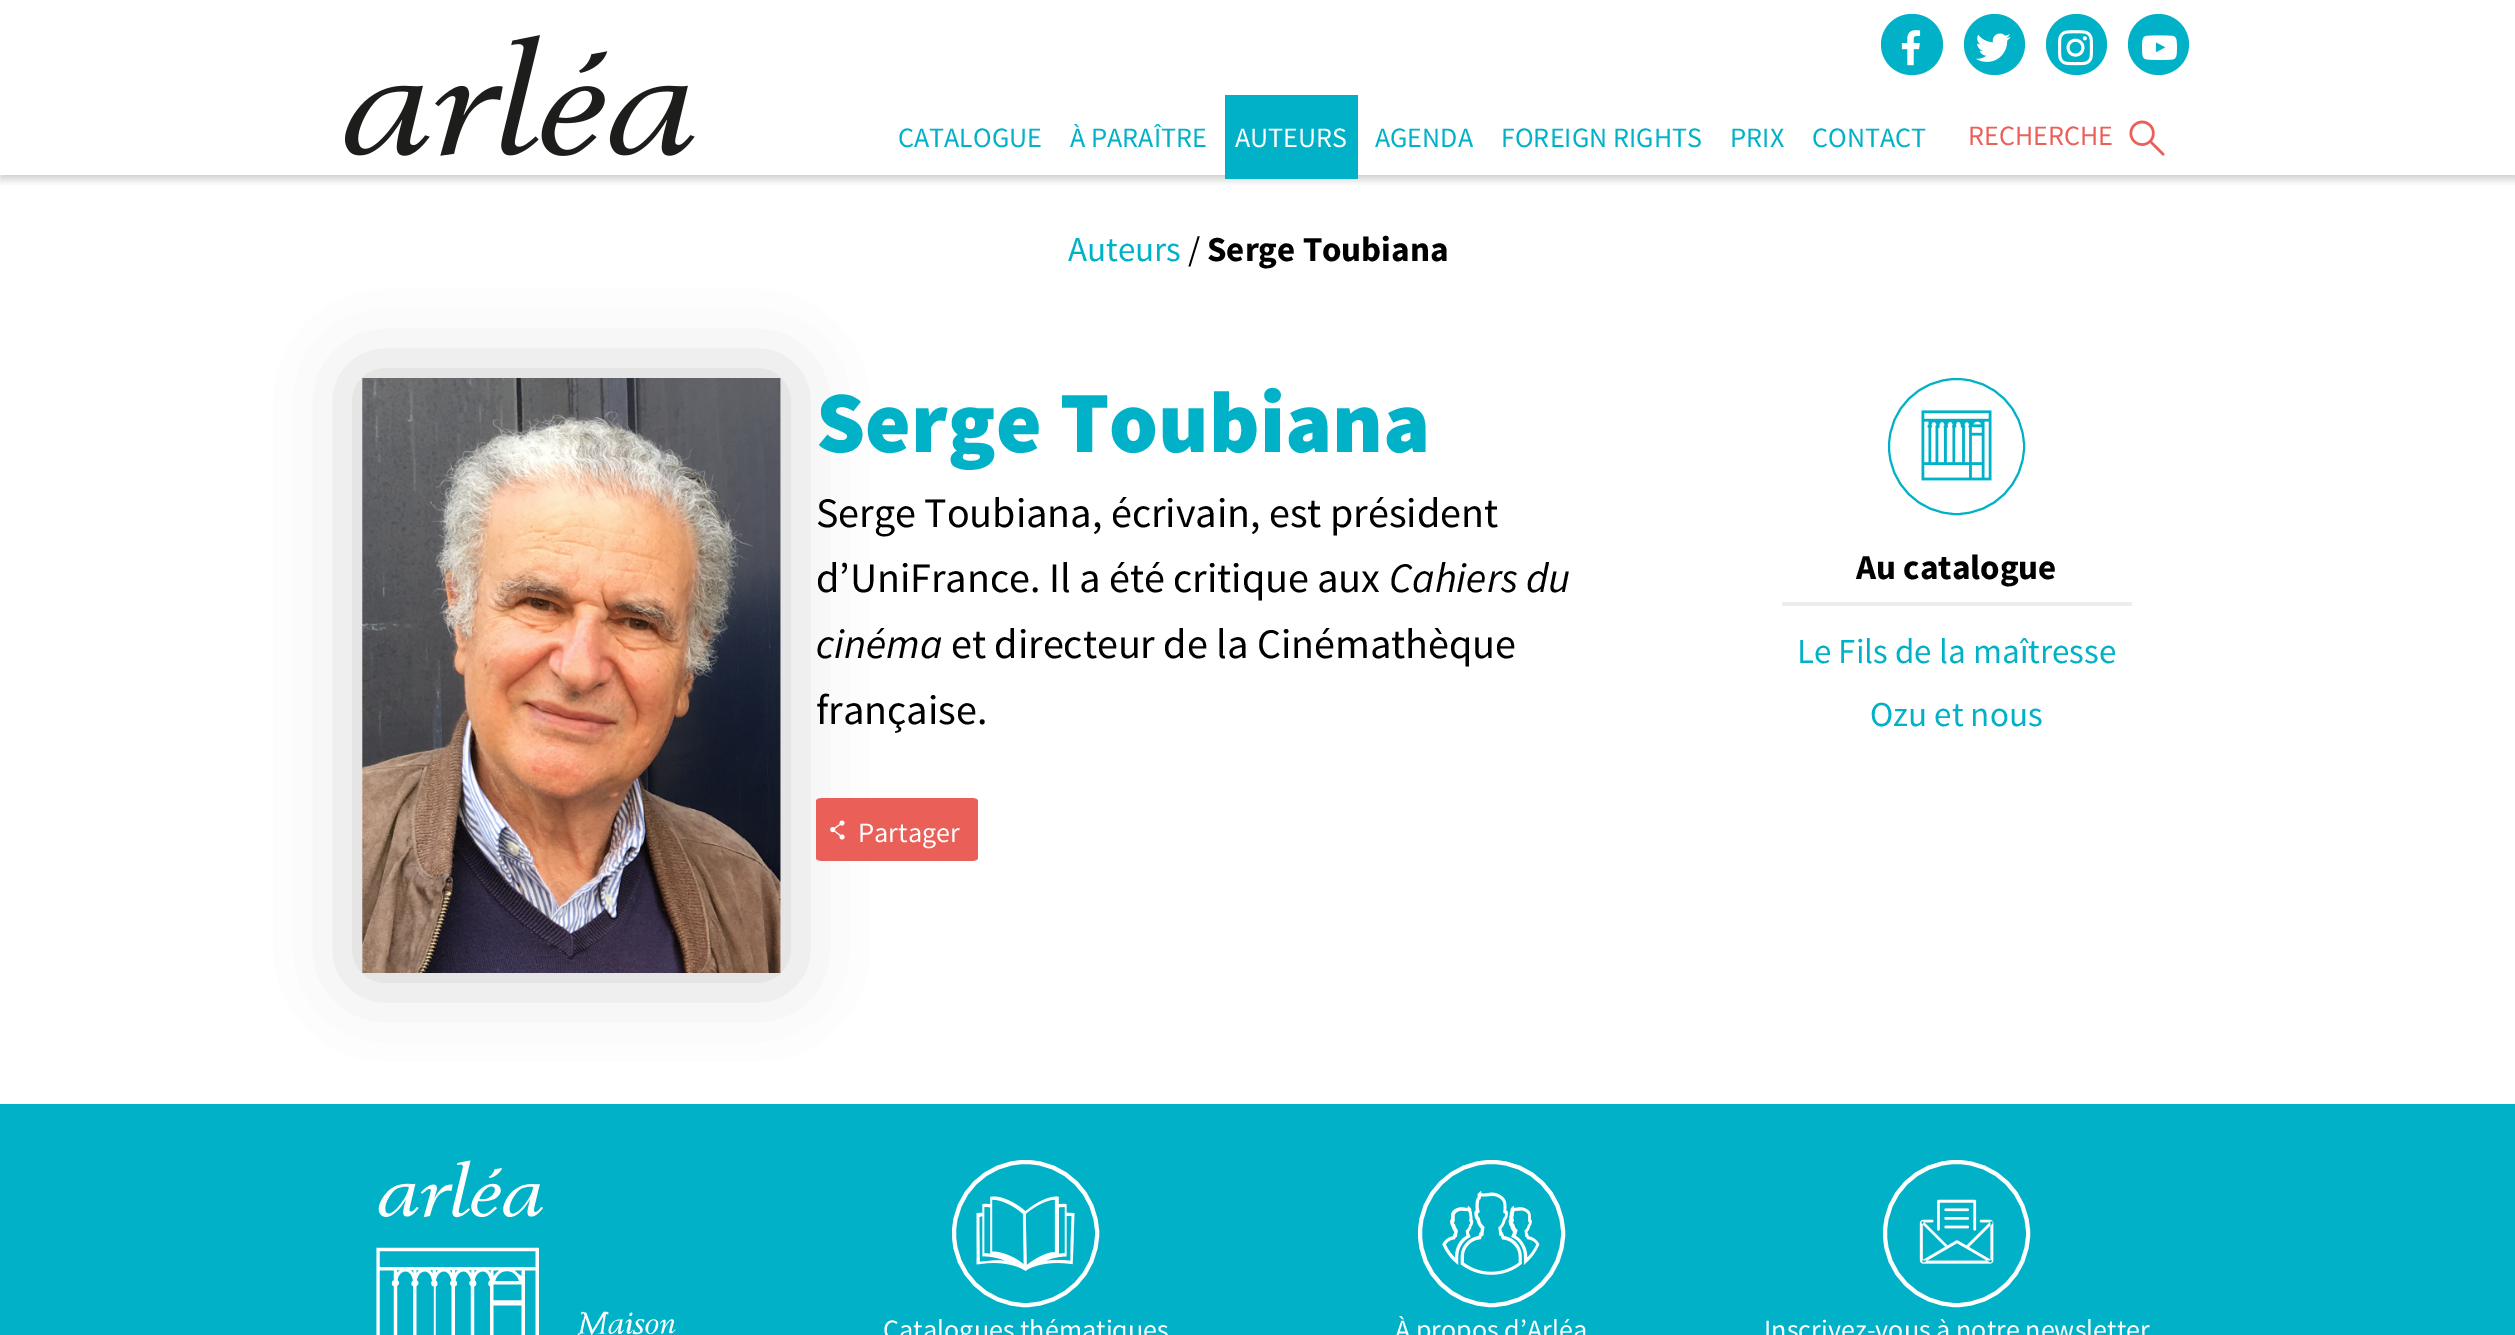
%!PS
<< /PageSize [2515 1335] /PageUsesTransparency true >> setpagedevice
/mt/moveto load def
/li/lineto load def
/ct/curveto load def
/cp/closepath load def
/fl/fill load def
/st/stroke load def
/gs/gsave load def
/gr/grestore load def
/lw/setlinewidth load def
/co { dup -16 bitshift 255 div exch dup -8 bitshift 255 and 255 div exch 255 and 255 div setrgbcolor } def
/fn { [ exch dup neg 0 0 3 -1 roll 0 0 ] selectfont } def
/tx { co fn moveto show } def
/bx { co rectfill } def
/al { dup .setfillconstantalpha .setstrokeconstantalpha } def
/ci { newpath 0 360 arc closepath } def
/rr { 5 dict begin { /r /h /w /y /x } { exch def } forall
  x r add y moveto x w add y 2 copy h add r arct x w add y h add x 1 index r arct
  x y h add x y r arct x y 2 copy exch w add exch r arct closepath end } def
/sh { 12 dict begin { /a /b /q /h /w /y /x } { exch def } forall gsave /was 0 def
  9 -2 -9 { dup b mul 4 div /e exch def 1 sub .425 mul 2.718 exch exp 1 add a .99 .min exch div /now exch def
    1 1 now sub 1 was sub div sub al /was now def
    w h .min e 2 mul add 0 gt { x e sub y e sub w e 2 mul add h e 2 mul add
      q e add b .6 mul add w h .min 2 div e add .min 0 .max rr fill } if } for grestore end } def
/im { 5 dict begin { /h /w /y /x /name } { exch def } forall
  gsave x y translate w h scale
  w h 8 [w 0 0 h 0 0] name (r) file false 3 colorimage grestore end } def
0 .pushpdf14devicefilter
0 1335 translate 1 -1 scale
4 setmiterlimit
0 0 2515 1335 16#FFFFFF bx
gs
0 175 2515 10 rectclip
16#000000 co
0 4 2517 175 0 4.5 .2 sh
gr
(media/1.raw) 345 35 350 121 im
1225 95 133 84 16#00B1C7 bx
1881 14 62 61 30.5 rr fl
(media/2.raw) 1901 30 20 36 im
1994.5 44.5 30.5 ci fl
(media/3.raw) 1976 33 35 29 im
2076.5 44.5 30.5 ci fl
(media/4.raw) 2058 30 35 36 im
2158.5 44.5 30.5 ci fl
(media/5.raw) 2142 35 35 25 im
(media/6.raw) 2129 120 36 36 im
16#000000 co
362 378 419 595 0 39.5 .2 sh
(media/7.raw) 362 378 419 595 im
16#EA6059 co
824 798 mt 970 798 li 975 798 978 799 978 801 ct 978 858 li 978 860 975 861 970 861 ct 824 861 li 819 861 816 860 816 858 ct 816 801 li 816 799 819 798 824 798 ct cp fl
(media/8.raw) 830 820 15 20 im
16#00B1C7 co
2 lw
1956.5 446.5 67.5 ci st
(media/9.raw) 1921 410 71 71 im
1782 602 350 4 16#EDEDED bx
0 1104 2515 231 16#00B1C7 bx
(media/10.raw) 376 1160 300 175 im
16#FFFFFF co
4 lw
1025.5 1233.5 71.5 ci st
(media/11.raw) 976 1196 99 75 im
1491.5 1233.5 71.5 ci st
(media/12.raw) 1442 1190 98 85 im
1956.5 1233.5 71.5 ci st
(media/13.raw) 1919 1199 75 65 im
(CATALOGUE) 898 147 /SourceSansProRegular-Regular 28 16#00B1C7 tx
(À PARAÎTRE) 1070 147 /SourceSansProRegular-Regular 28 16#00B1C7 tx
(AUTEURS) 1235 147 /SourceSansProRegular-Regular 28 16#FFFFFF tx
(AGENDA) 1375 147 /SourceSansProRegular-Regular 28 16#00B1C7 tx
(FOREIGN RIGHTS) 1501 147 /SourceSansProRegular-Regular 28 16#00B1C7 tx
(PRIX) 1730 147 /SourceSansProRegular-Regular 28 16#00B1C7 tx
(CONTACT) 1812 147 /SourceSansProRegular-Regular 28 16#00B1C7 tx
(RECHERCHE) 1968 145 /SourceSansProRegular-Regular 28 16#EA6059 tx
(Auteurs) 1068 261 /SourceSansProRegular-Regular 35 16#00B1C7 tx
(/) 1188 261 /SourceSansProRegular-Regular 35 16#000000 tx
(Serge Toubiana) 1207 261 /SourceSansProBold-Bold 35 16#000000 tx
(Serge Toubiana) 816 452 /SourceSansPro-Black 87.5 16#00B1C7 tx
(Serge Toubiana, écrivain, est président) 816 527 /SourceSansProRegular-Regular 42 16#000000 tx
(d’UniFrance. Il a été critique aux) 816 592 /SourceSansProRegular-Regular 42 16#000000 tx
(Cahiers du) 1389 592 /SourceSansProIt-Italic 42 16#000000 tx
(cinéma) 816 658 /SourceSansProIt-Italic 42 16#000000 tx
(et directeur de la Cinémathèque) 951 658 /SourceSansProRegular-Regular 42 16#000000 tx
(française.) 816 724 /SourceSansProRegular-Regular 42 16#000000 tx
(Partager) 858 842 /SourceSansProRegular-Regular 28 16#FFFFFF tx
(Au catalogue) 1856 579 /SourceSansProBold-Bold 35 16#000000 tx
(Le Fils de la maîtresse) 1797 663 /SourceSansProRegular-Regular 35 16#00B1C7 tx
(Ozu et nous) 1870 726 /SourceSansProRegular-Regular 35 16#00B1C7 tx
(Catalogues thématiques) 883 1339 /SourceSansProRegular-Regular 28 16#FFFFFF tx
(À propos d’Arléa) 1395 1339 /SourceSansProRegular-Regular 28 16#FFFFFF tx
(Inscrivez-vous à notre newsletter) 1764 1339 /SourceSansProRegular-Regular 28 16#FFFFFF tx
.poppdf14devicefilter showpage
